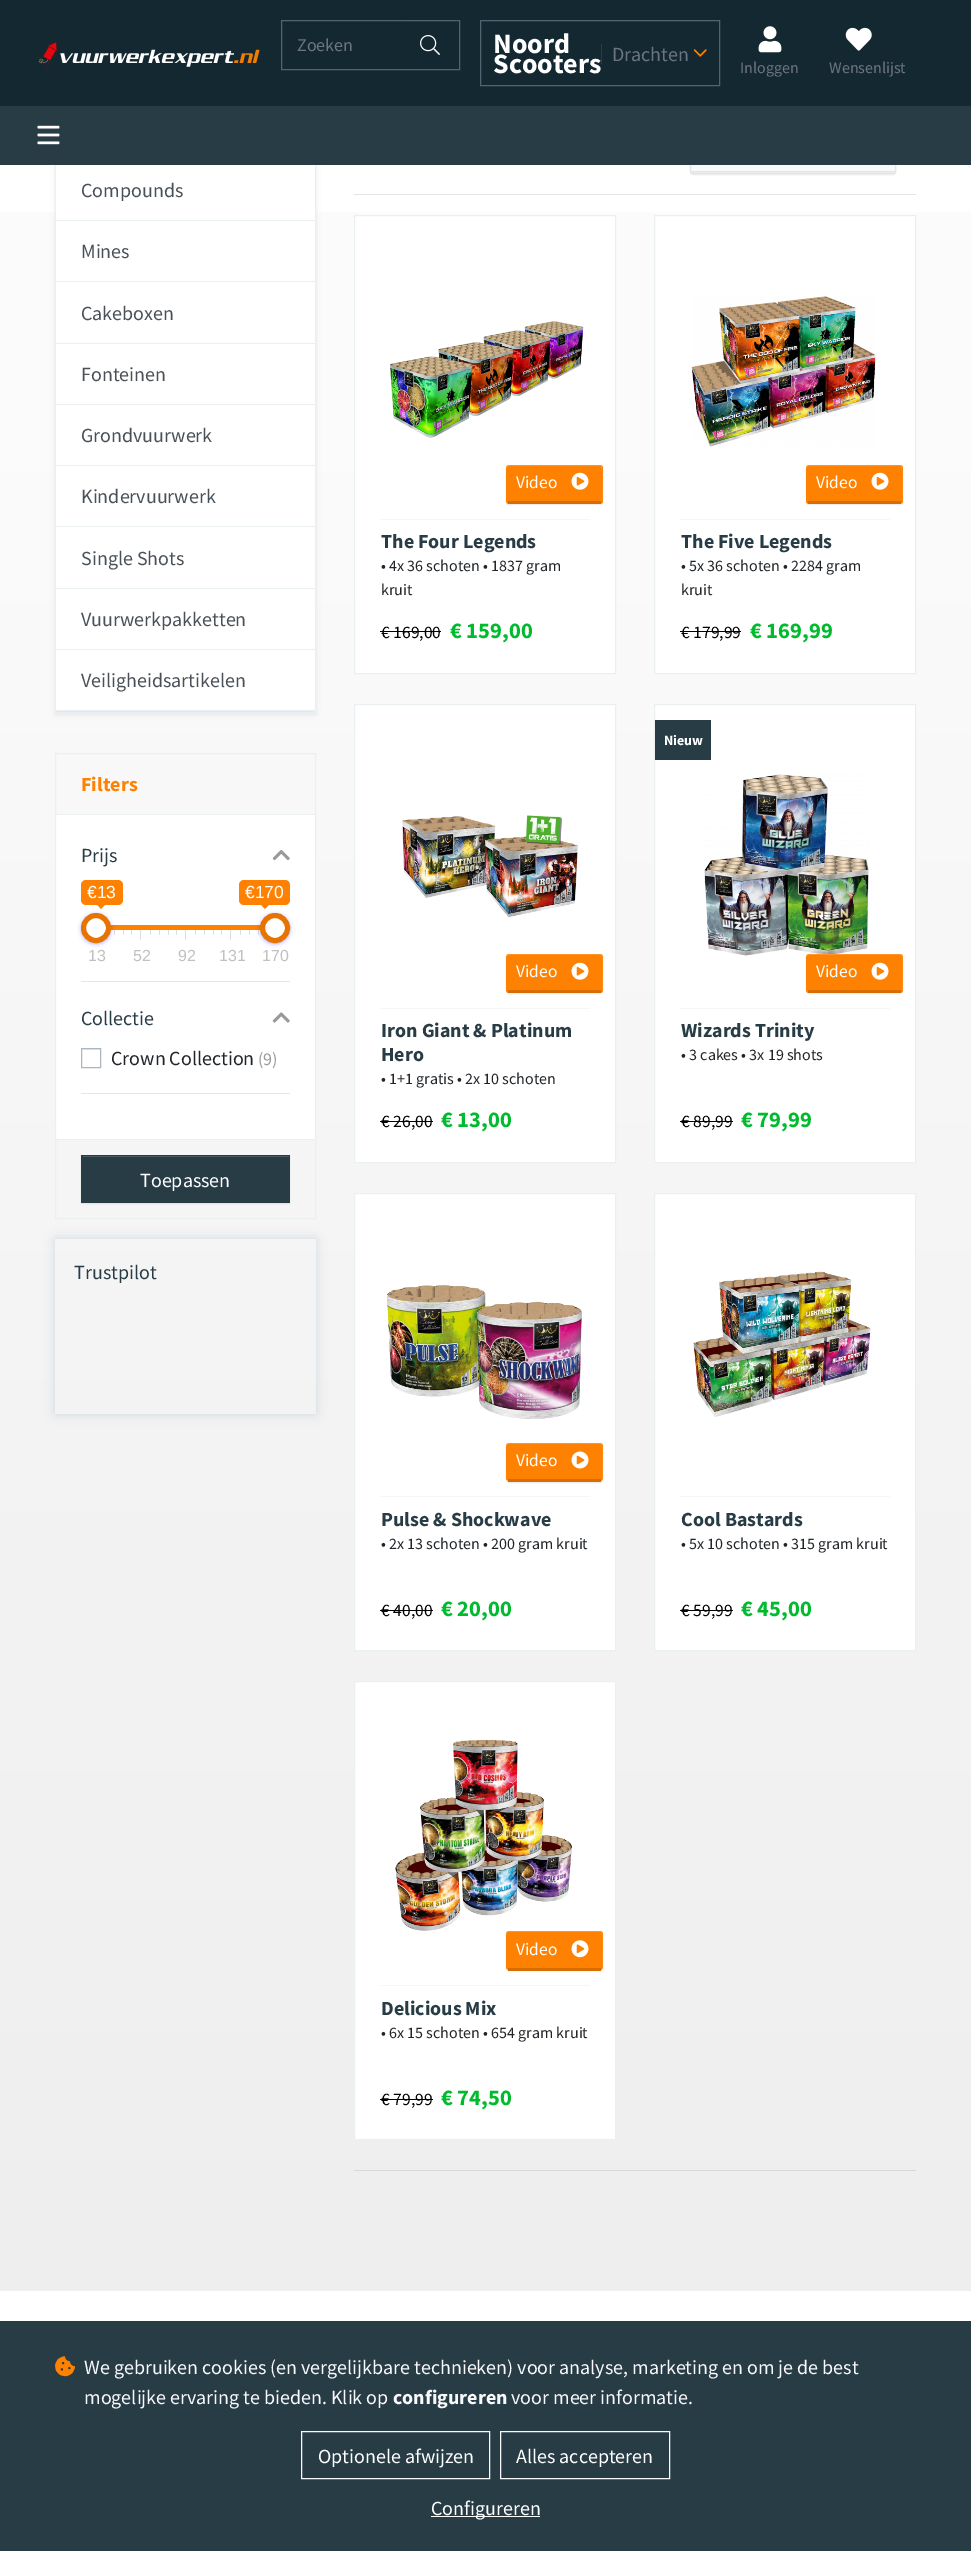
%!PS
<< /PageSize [971 2551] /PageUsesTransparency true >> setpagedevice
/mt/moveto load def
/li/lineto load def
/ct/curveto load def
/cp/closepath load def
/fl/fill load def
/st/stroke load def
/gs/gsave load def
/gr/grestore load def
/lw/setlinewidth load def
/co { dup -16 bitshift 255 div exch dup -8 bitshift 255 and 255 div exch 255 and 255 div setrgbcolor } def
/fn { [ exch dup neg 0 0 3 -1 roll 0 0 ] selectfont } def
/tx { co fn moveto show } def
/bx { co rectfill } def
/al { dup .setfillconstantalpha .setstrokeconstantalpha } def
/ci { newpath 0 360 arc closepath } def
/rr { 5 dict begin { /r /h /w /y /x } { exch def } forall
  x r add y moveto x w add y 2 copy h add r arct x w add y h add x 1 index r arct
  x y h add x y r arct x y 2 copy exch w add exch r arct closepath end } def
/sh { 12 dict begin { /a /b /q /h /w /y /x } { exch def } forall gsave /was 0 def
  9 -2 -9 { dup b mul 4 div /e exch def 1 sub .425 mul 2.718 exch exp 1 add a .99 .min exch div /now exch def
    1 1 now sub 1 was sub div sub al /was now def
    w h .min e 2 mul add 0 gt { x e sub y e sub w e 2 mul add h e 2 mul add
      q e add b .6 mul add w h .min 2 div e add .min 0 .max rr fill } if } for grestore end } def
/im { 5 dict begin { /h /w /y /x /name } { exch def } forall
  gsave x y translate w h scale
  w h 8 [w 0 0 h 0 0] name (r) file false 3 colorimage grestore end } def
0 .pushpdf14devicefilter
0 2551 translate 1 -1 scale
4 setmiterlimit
0 0 971 2551 16#FFFFFF bx
gs 0 212 mt 971 212 li 971 2291 li 0 2291 li cp clip newpath
<< /ShadingType 2 /ColorSpace /DeviceRGB /Coords [486 2291 486 -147] /Extend [true true] /Function << /FunctionType 2 /Domain [0 1] /C0 [.933 .933 .937] /C1 [1 1 1] /N 1 >> >> shfill gr
16#000000 co
55 -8 261 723 0 2.5 .07 sh
16#EAEFF2 co
55.5 -.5 260 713 rectstroke
0 0 971 106 16#142832 bx
(media/1.raw) 38 42 222 27 im
16#4E6470 co
281.5 20.5 178 49 rectstroke
283 23 120 1 16#13252E bx
(media/2.raw) 420 35 20 20 im
16#4E6470 co
480.5 20.5 239 65 rectstroke
601 44 1 20 16#343A40 bx
(media/3.raw) 693 49 14 8 im
(media/4.raw) 758 26 24 27 im
(media/5.raw) 845 27 27 24 im
16#000000 co
690 135 206 40 3 .5 .07 sh
16#F8F9FA co
693 135 mt 893 135 li 894 135 895 136 895 137 ct 895 171 li 893 171 li 693 171 li 691 171 li 691 137 li 691 136 692 135 693 135 ct cp fl
16#E2E6EA co
690.5 134.5 205 39 2.5 rr st
0 106 971 59 16#283C46 bx
(media/6.raw) 37 125 23 20 im
56 165 259 55 16#FFFFFF bx
56 220 259 1 16#EAEFF2 bx
56 221 259 122 16#FFFFFF bx
56 281 259 1 16#EAEFF2 bx
56 343 259 1 16#EAEFF2 bx
56 344 259 60 16#FFFFFF bx
56 404 259 1 16#EAEFF2 bx
56 405 259 60 16#FFFFFF bx
56 465 259 1 16#EAEFF2 bx
56 466 259 122 16#FFFFFF bx
56 526 259 1 16#EAEFF2 bx
56 588 259 1 16#EAEFF2 bx
56 589 259 60 16#FFFFFF bx
56 649 259 1 16#EAEFF2 bx
56 650 259 60 16#FFFFFF bx
56 710 259 1 16#EAEFF2 bx
56 815 259 324 16#FFFFFF bx
16#EAEFF2 co
55.5 753.5 260 465 rectstroke
56 814 259 1 16#EAEFF2 bx
81 981 209 1 16#E6E6E6 bx
(media/7.raw) 272 849 18 12 im
16#FF8101 co
81 880 42 25 5 rr fl
97.5 905 mt 105 905 li 101 909 li cp fl
239 880 51 25 5 rr fl
261 905 mt 269 905 li 265 909 li cp fl
110 925 151 5 16#FF8101 bx
114 930 1 5 16#DEDEDE bx
16#0000FF co
81 914 30 30 15 2 .3 sh
16#FFFFFF co
96 928 12.5 ci gs fl gr
16#E77400 co
5 lw
st
258 930 1 5 16#DEDEDE bx
16#0000FF co
260 914 30 30 15 2 .3 sh
16#FFFFFF co
275 928 12.5 ci gs fl gr
16#E77400 co
st
123 930 1 5 16#DEDEDE bx
131 930 1 5 16#DEDEDE bx
140 930 1 10 16#DEDEDE bx
150 930 1 5 16#DEDEDE bx
159 930 1 5 16#DEDEDE bx
168 930 1 5 16#DEDEDE bx
176 930 1 5 16#DEDEDE bx
185 930 1 10 16#DEDEDE bx
195 930 1 5 16#DEDEDE bx
204 930 1 5 16#DEDEDE bx
213 930 1 5 16#DEDEDE bx
221 930 1 5 16#DEDEDE bx
230 930 1 10 16#DEDEDE bx
240 930 1 5 16#DEDEDE bx
249 930 1 5 16#DEDEDE bx
81 1093 209 1 16#E6E6E6 bx
(media/8.raw) 272 1012 18 11 im
83 1049 17 1 16#ECECEC bx
16#ADB5BD co
1 lw
81.5 1048.5 19 19 rectstroke
56 1139 259 1 16#EAEFF2 bx
16#000000 co
81 1156 209 48 0 .5 .07 sh
81 1155 209 48 16#283C46 bx
83 1156 206 1 16#485962 bx
gs
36 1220 mt 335 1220 li 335 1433 li 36 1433 li cp 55 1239 mt 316 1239 li 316 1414 li 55 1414 li cp eoclip newpath
16#CED8DD co
55 1239 261 175 0 6 1 sh
gr
691 171 204 1 16#E2E6EA bx
354 194 562 1 16#E4E4E4 bx
16#FFFFFF co
354.5 215.5 mt 615.5 215.5 li 615.5 673.5 li 354.5 673.5 li cp gs fl gr
16#EAEFF2 co
st
(media/9.raw) 390 321 194 117 im
16#000000 co
506 466 97 39 3 .5 .07 sh
16#FF8101 co
506 465 97 39 3 rr fl
0.15 al
16#FFFFFF co
509 466 mt 600 466 li 601 466 602 468 602 469 ct 602 501 li 603 501 602 482 602 479 ct 602 461 605 465 584 465 ct 524 465 li 518 465 506 462 506 468 ct cp fl
1 al
508 501 93 3 16#D76C00 bx
(media/10.raw) 571 472 18 18 im
380 519 210 1 16#F4F7F8 bx
380 631 61 1 16#000000 bx
16#FFFFFF co
654.5 215.5 mt 915.5 215.5 li 915.5 673.5 li 654.5 673.5 li cp gs fl gr
16#EAEFF2 co
st
(media/11.raw) 691 296 185 151 im
16#000000 co
806 466 97 39 3 .5 .07 sh
16#FF8101 co
806 465 97 39 3 rr fl
0.15 al
16#FFFFFF co
809 466 mt 900 466 li 901 466 902 468 902 469 ct 902 501 li 903 501 902 482 902 479 ct 902 461 905 465 884 465 ct 824 465 li 818 465 806 462 806 468 ct cp fl
1 al
808 501 93 3 16#D76C00 bx
(media/10.raw) 871 472 18 18 im
680 519 210 1 16#F4F7F8 bx
680 631 61 1 16#000000 bx
16#FFFFFF co
354.5 704.5 mt 615.5 704.5 li 615.5 1162.5 li 354.5 1162.5 li cp gs fl gr
16#EAEFF2 co
st
(media/12.raw) 402 815 176 103 im
16#000000 co
506 955 97 39 3 .5 .07 sh
16#FF8101 co
506 954 97 39 3 rr fl
0.15 al
16#FFFFFF co
509 955 mt 600 955 li 601 955 602 956 602 958 ct 602 990 li 603 989 602 970 602 968 ct 602 950 605 954 584 954 ct 524 954 li 518 954 506 951 506 957 ct 507 956 508 955 509 955 ct cp fl
1 al
508 990 93 3 16#D76C00 bx
(media/10.raw) 571 962 18 18 im
380 1008 210 1 16#F4F7F8 bx
380 1121 53 1 16#000000 bx
16#FFFFFF co
654.5 704.5 mt 915.5 704.5 li 915.5 1162.5 li 654.5 1162.5 li cp gs fl gr
16#EAEFF2 co
st
655 720 56 40 16#283C46 bx
(media/13.raw) 704 774 165 182 im
16#000000 co
806 955 97 39 3 .5 .07 sh
16#FF8101 co
806 954 97 39 3 rr fl
0.15 al
16#FFFFFF co
809 955 mt 900 955 li 901 955 902 956 902 958 ct 902 990 li 903 989 902 970 902 968 ct 902 950 905 954 884 954 ct 824 954 li 818 954 806 951 806 957 ct 807 956 808 955 809 955 ct cp fl
1 al
808 990 93 3 16#D76C00 bx
(media/10.raw) 871 962 18 18 im
680 1008 210 1 16#F4F7F8 bx
680 1121 53 1 16#000000 bx
16#FFFFFF co
354.5 1193.5 mt 615.5 1193.5 li 615.5 1650.5 li 354.5 1650.5 li cp gs fl gr
16#EAEFF2 co
st
(media/14.raw) 387 1285 195 134 im
16#000000 co
506 1444 97 39 3 .5 .07 sh
16#FF8101 co
506 1443 97 38 3 rr fl
0.15 al
16#FFFFFF co
509 1444 mt 600 1444 li 601 1444 602 1445 602 1447 ct 602 1479 li 603 1478 602 1459 602 1456 ct 602 1439 605 1442 584 1442 ct 524 1442 li 518 1442 506 1440 506 1446 ct 507 1445 508 1444 509 1444 ct cp fl
1 al
508 1479 93 3 16#D76C00 bx
(media/15.raw) 571 1451 18 18 im
380 1496 210 1 16#F4F7F8 bx
380 1610 53 1 16#000000 bx
16#FFFFFF co
654.5 1193.5 mt 915.5 1193.5 li 915.5 1650.5 li 654.5 1650.5 li cp gs fl gr
16#EAEFF2 co
st
(media/16.raw) 693 1271 178 146 im
680 1496 210 1 16#F4F7F8 bx
680 1610 53 1 16#000000 bx
16#FFFFFF co
354.5 1681.5 mt 615.5 1681.5 li 615.5 2139.5 li 354.5 2139.5 li cp gs fl gr
16#EAEFF2 co
st
(media/17.raw) 395 1739 177 192 im
16#000000 co
506 1933 97 38 3 .5 .07 sh
16#FF8101 co
506 1931 97 39 3 rr fl
0.15 al
16#FFFFFF co
509 1932 mt 600 1932 li 601 1932 602 1934 602 1936 ct 602 1967 li 603 1967 602 1948 602 1945 ct 602 1928 605 1931 584 1931 ct 524 1931 li 517 1931 506 1928 506 1935 ct 507 1933 508 1932 509 1932 ct cp fl
1 al
508 1968 93 3 16#D76C00 bx
(media/18.raw) 571 1940 18 18 im
380 1985 210 1 16#F4F7F8 bx
380 2099 53 1 16#000000 bx
354 2170 562 1 16#D7D7D8 bx
0 2321 971 230 16#283C46 bx
(media/19.raw) 55 2356 20 21 im
16#F8F9FA co
301.5 2431.5 188 47 rectstroke
500.5 2431.5 169 47 rectstroke
431 2516 109 1 16#FFFFFF bx
(Zoeken) 297 51 /SourceSansPro-Regular 18 16#6C757D tx
(Noord) 493 53 /SourceSansPro-Bold 28 16#FFFFFF tx
(Scooters) 493 73 /SourceSansPro-Bold 28 16#FFFFFF tx
(Drachten) 612 61 /SourceSansPro-Regular 20 16#6C757D tx
(Inloggen) 740 73 /SourceSansPro-Regular 16 16#6C757D tx
(Wensenlijst) 829 73 /SourceSansPro-Regular 16 16#6C757D tx
(Compounds) 81 197 /SourceSansPro-Regular 20 16#495057 tx
(Mines) 81 258 /SourceSansPro-Regular 20 16#495057 tx
(Cakeboxen) 81 320 /SourceSansPro-Regular 20 16#495057 tx
(Fonteinen) 81 381 /SourceSansPro-Regular 20 16#495057 tx
(Grondvuurwerk) 81 442 /SourceSansPro-Regular 20 16#495057 tx
(Kindervuurwerk) 81 503 /SourceSansPro-Regular 20 16#495057 tx
(Single Shots) 81 565 /SourceSansPro-Regular 20 16#495057 tx
(Vuurwerkpakketten) 81 626 /SourceSansPro-Regular 20 16#495057 tx
(Veiligheidsartikelen) 81 687 /SourceSansPro-Regular 20 16#495057 tx
(Filters) 81 791 /SourceSansPro-Bold 20 16#FF8101 tx
(Prijs) 81 862 /SourceSansPro-Regular 20 16#283C46 tx
(€13) 87 898 /LiberationSans-Regular 17.5 16#FFFFFF tx
(€170) 245 898 /LiberationSans-Regular 17.5 16#FFFFFF tx
(13) 88 961 /LiberationSans-Regular 16 16#C0C0C0 tx
(52) 133 961 /LiberationSans-Regular 16 16#C0C0C0 tx
(92) 178 961 /LiberationSans-Regular 16 16#C0C0C0 tx
(131) 219 961 /LiberationSans-Regular 16 16#C0C0C0 tx
(170) 262 961 /LiberationSans-Regular 16 16#C0C0C0 tx
(Collectie) 81 1025 /SourceSansPro-Regular 20 16#283C46 tx
(Crown Collection) 111 1065 /SourceSansPro-Regular 20 16#212529 tx
(\(9\)) 258 1065 /SourceSansPro-Regular 18 16#999999 tx
(Toepassen) 140 1187 /SourceSansPro-Regular 20 16#FFFFFF tx
(Trustpilot) 74 1279 /SourceSansPro-Regular 20 16#283C46 tx
(Video) 516 488 /SourceSansPro-Regular 17.5 16#FFFFFF tx
(The Four Legends) 381 548 /SourceSansPro-Bold 20 16#283C46 tx
(• 4x 36 schoten • 1837 gram) 381 571 /SourceSansPro-Regular 16 16#212529 tx
(kruit) 381 595 /SourceSansPro-Regular 16 16#212529 tx
(€ 169,00) 381 638 /SourceSansPro-Regular 17.5 16#000000 tx
(€ 159,00) 450 638 /SourceSansPro-Bold 22.5 16#00BB2E tx
(Video) 816 488 /SourceSansPro-Regular 17.5 16#FFFFFF tx
(The Five Legends) 681 548 /SourceSansPro-Bold 20 16#283C46 tx
(• 5x 36 schoten • 2284 gram) 681 571 /SourceSansPro-Regular 16 16#212529 tx
(kruit) 681 595 /SourceSansPro-Regular 16 16#212529 tx
(€ 179,99) 681 638 /SourceSansPro-Regular 17.5 16#000000 tx
(€ 169,99) 750 638 /SourceSansPro-Bold 22.5 16#00BB2E tx
(Video) 516 977 /SourceSansPro-Regular 17.5 16#FFFFFF tx
(Iron Giant & Platinum) 381 1037 /SourceSansPro-Bold 20 16#283C46 tx
(Hero) 381 1061 /SourceSansPro-Bold 20 16#283C46 tx
(• 1+1 gratis • 2x 10 schoten) 381 1084 /SourceSansPro-Regular 16 16#212529 tx
(€ 26,00) 381 1127 /SourceSansPro-Regular 17.5 16#000000 tx
(€ 13,00) 441 1127 /SourceSansPro-Bold 22.5 16#00BB2E tx
(Nieuw) 664 745 /SourceSansPro-Bold 14 16#FFFFFF tx
(Video) 816 977 /SourceSansPro-Regular 17.5 16#FFFFFF tx
(Wizards Trinity) 681 1037 /SourceSansPro-Bold 20 16#283C46 tx
(• 3 cakes • 3x 19 shots) 681 1060 /SourceSansPro-Regular 16 16#212529 tx
(€ 89,99) 681 1127 /SourceSansPro-Regular 17.5 16#000000 tx
(€ 79,99) 741 1127 /SourceSansPro-Bold 22.5 16#00BB2E tx
(Video) 516 1466 /SourceSansPro-Regular 17.5 16#FFFFFF tx
(Pulse & Shockwave) 381 1526 /SourceSansPro-Bold 20 16#283C46 tx
(• 2x 13 schoten • 200 gram kruit) 381 1549 /SourceSansPro-Regular 16 16#212529 tx
(€ 40,00) 381 1616 /SourceSansPro-Regular 17.5 16#000000 tx
(€ 20,00) 441 1616 /SourceSansPro-Bold 22.5 16#00BB2E tx
(Cool Bastards) 681 1526 /SourceSansPro-Bold 20 16#283C46 tx
(• 5x 10 schoten • 315 gram kruit) 681 1549 /SourceSansPro-Regular 16 16#212529 tx
(€ 59,99) 681 1616 /SourceSansPro-Regular 17.5 16#000000 tx
(€ 45,00) 741 1616 /SourceSansPro-Bold 22.5 16#00BB2E tx
(Video) 516 1955 /SourceSansPro-Regular 17.5 16#FFFFFF tx
(Delicious Mix) 381 2015 /SourceSansPro-Bold 20 16#283C46 tx
(• 6x 15 schoten • 654 gram kruit) 381 2038 /SourceSansPro-Regular 16 16#212529 tx
(€ 79,99) 381 2105 /SourceSansPro-Regular 17.5 16#000000 tx
(€ 74,50) 441 2105 /SourceSansPro-Bold 22.5 16#00BB2E tx
(We gebruiken cookies \(en vergelijkbare technieken\) voor analyse, marketing en om je de best) 84 2374 /SourceSansPro-Regular 20 16#F8F9FA tx
(mogelijke ervaring te bieden. Klik op) 84 2404 /SourceSansPro-Regular 20 16#F8F9FA tx
(configureren) 393 2404 /SourceSansPro-Bold 20 16#F8F9FA tx
(voor meer informatie.) 511 2404 /SourceSansPro-Regular 20 16#F8F9FA tx
(Optionele afwijzen) 318 2463 /SourceSansPro-Regular 20 16#FFFFFF tx
(Alles accepteren) 516 2463 /SourceSansPro-Regular 20 16#FFFFFF tx
(Configureren) 431 2515 /SourceSansPro-Regular 20 16#FFFFFF tx
.poppdf14devicefilter showpage
